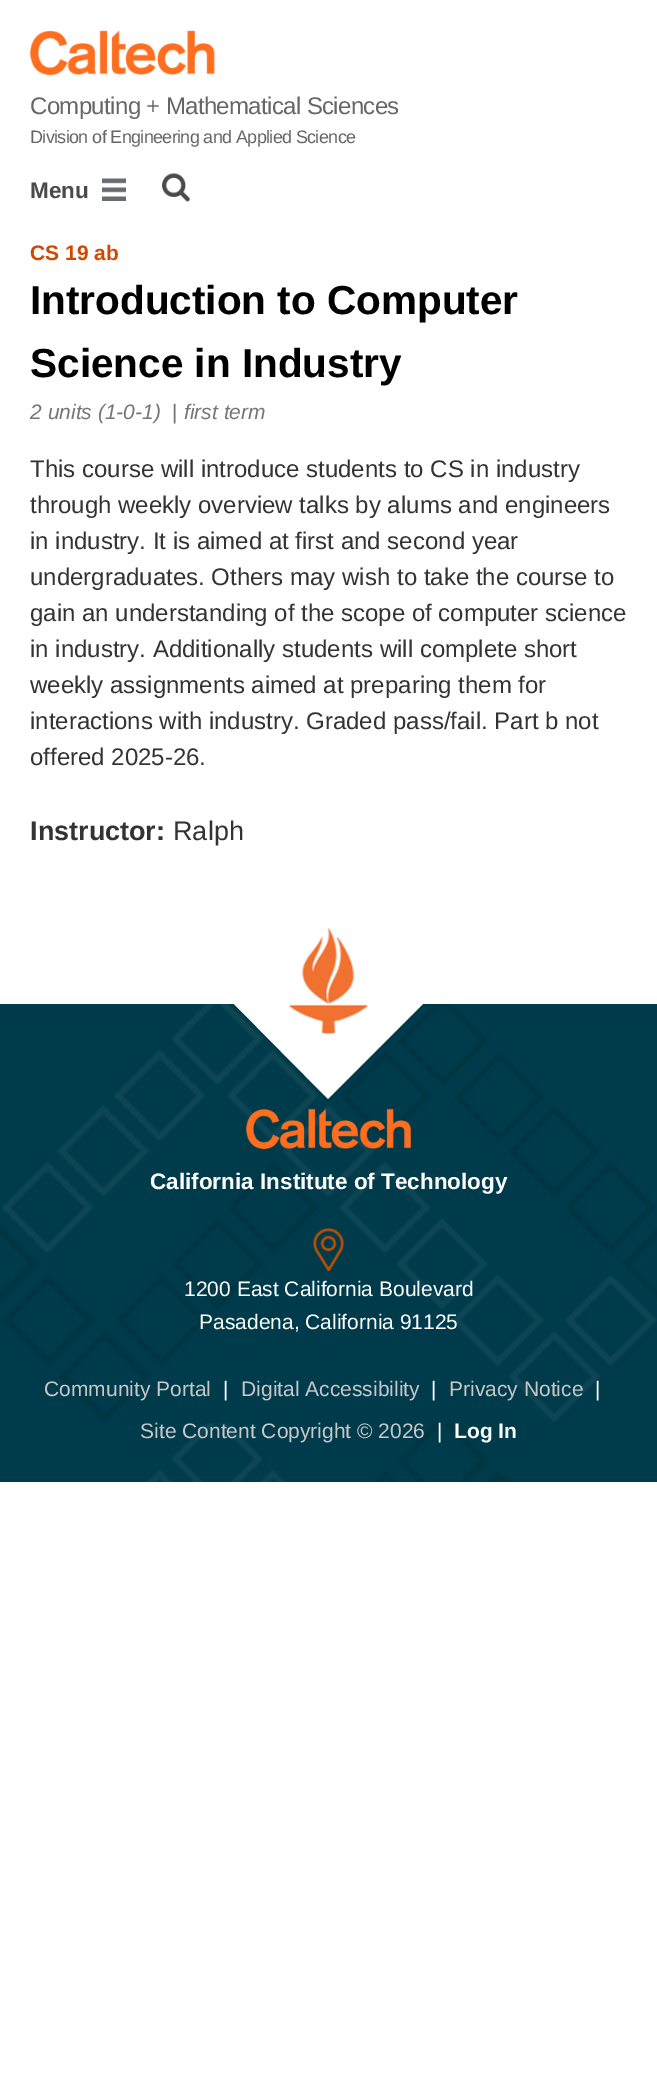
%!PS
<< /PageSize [657 2100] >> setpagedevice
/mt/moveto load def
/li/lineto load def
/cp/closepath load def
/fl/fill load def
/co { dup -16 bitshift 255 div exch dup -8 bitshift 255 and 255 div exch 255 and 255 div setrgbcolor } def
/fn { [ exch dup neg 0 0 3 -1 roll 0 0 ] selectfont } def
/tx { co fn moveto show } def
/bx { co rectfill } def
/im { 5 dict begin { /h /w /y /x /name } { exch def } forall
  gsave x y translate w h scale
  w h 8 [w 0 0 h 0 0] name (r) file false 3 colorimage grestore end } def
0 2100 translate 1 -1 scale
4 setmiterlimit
0 0 657 2100 16#FFFFFF bx
(media/1.raw) 30 30 185 45 im
(media/2.raw) 102 178 24 23 im
(media/3.raw) 162 173 29 29 im
0 1004 657 478 16#003B4C bx
(media/4.raw) 0 1003 657 479 im
16#FFFFFF co
328 908 mt 424 1003 li 328 1099 li 233 1003 li cp fl
(media/5.raw) 289 928 79 106 im
(media/6.raw) 246 1108 165 41 im
(media/7.raw) 313 1228 31 44 im
/LiberationSans-Regular 24 fn
16#666666 co
30 114 mt -.65 0 (Computing + Mathematical Sciences) ashow
/LiberationSans-Regular 18 fn
30 143 mt -.65 0 (Division of Engineering and Applied Science) ashow
(Menu) 30 198 /LiberationSans-Bold 22.5 16#4A4A4A tx
(CS 19 ab) 30 260 /LiberationSans-Bold 21 16#D14900 tx
(Introduction to Computer) 30 314 /LiberationSans-Bold 40.5 16#000000 tx
(Science in Industry) 30 377 /LiberationSans-Bold 40.5 16#000000 tx
(2 units \(1-0-1\)) 30 419 /LiberationSans-Italic 21 16#767676 tx
(|) 172 419 /LiberationSans-Regular 21 16#767676 tx
(first term) 184 419 /LiberationSans-Italic 21 16#767676 tx
(This course will introduce students to CS in industry) 30 477 /LiberationSans-Regular 24 16#333333 tx
(through weekly overview talks by alums and engineers) 30 513 /LiberationSans-Regular 24 16#333333 tx
(in industry. It is aimed at first and second year) 30 549 /LiberationSans-Regular 24 16#333333 tx
(undergraduates. Others may wish to take the course to) 30 585 /LiberationSans-Regular 24 16#333333 tx
(gain an understanding of the scope of computer science) 30 621 /LiberationSans-Regular 24 16#333333 tx
(in industry. Additionally students will complete short) 30 657 /LiberationSans-Regular 24 16#333333 tx
(weekly assignments aimed at preparing them for) 30 693 /LiberationSans-Regular 24 16#333333 tx
(interactions with industry. Graded pass/fail. Part b not) 30 729 /LiberationSans-Regular 24 16#333333 tx
(offered 2025-26.) 30 765 /LiberationSans-Regular 24 16#333333 tx
(Instructor:) 30 840 /LiberationSans-Bold 27 16#333333 tx
(Ralph) 173 840 /LiberationSans-Regular 27 16#333333 tx
(California Institute of Technology) 150 1189 /LiberationSans-Bold 22.5 16#FFFFFF tx
(1200 East California Boulevard) 184 1296 /LiberationSans-Regular 21 16#FFFFFF tx
(Pasadena, California 91125) 199 1329 /LiberationSans-Regular 21 16#FFFFFF tx
(Community Portal) 44 1396 /LiberationSans-Regular 21 16#C8C8C8 tx
(|) 223 1396 /LiberationSans-Regular 21 16#FFFFFF tx
(Digital Accessibility) 241 1396 /LiberationSans-Regular 21 16#C8C8C8 tx
(|) 431 1396 /LiberationSans-Regular 21 16#FFFFFF tx
(Privacy Notice) 449 1396 /LiberationSans-Regular 21 16#C8C8C8 tx
(|) 595 1396 /LiberationSans-Regular 21 16#FFFFFF tx
(Site Content Copyright © 2026) 140 1438 /LiberationSans-Regular 21 16#C8C8C8 tx
(|) 437 1438 /LiberationSans-Regular 21 16#FFFFFF tx
(Log In) 454 1438 /LiberationSans-Bold 21 16#FFFFFF tx
showpage
